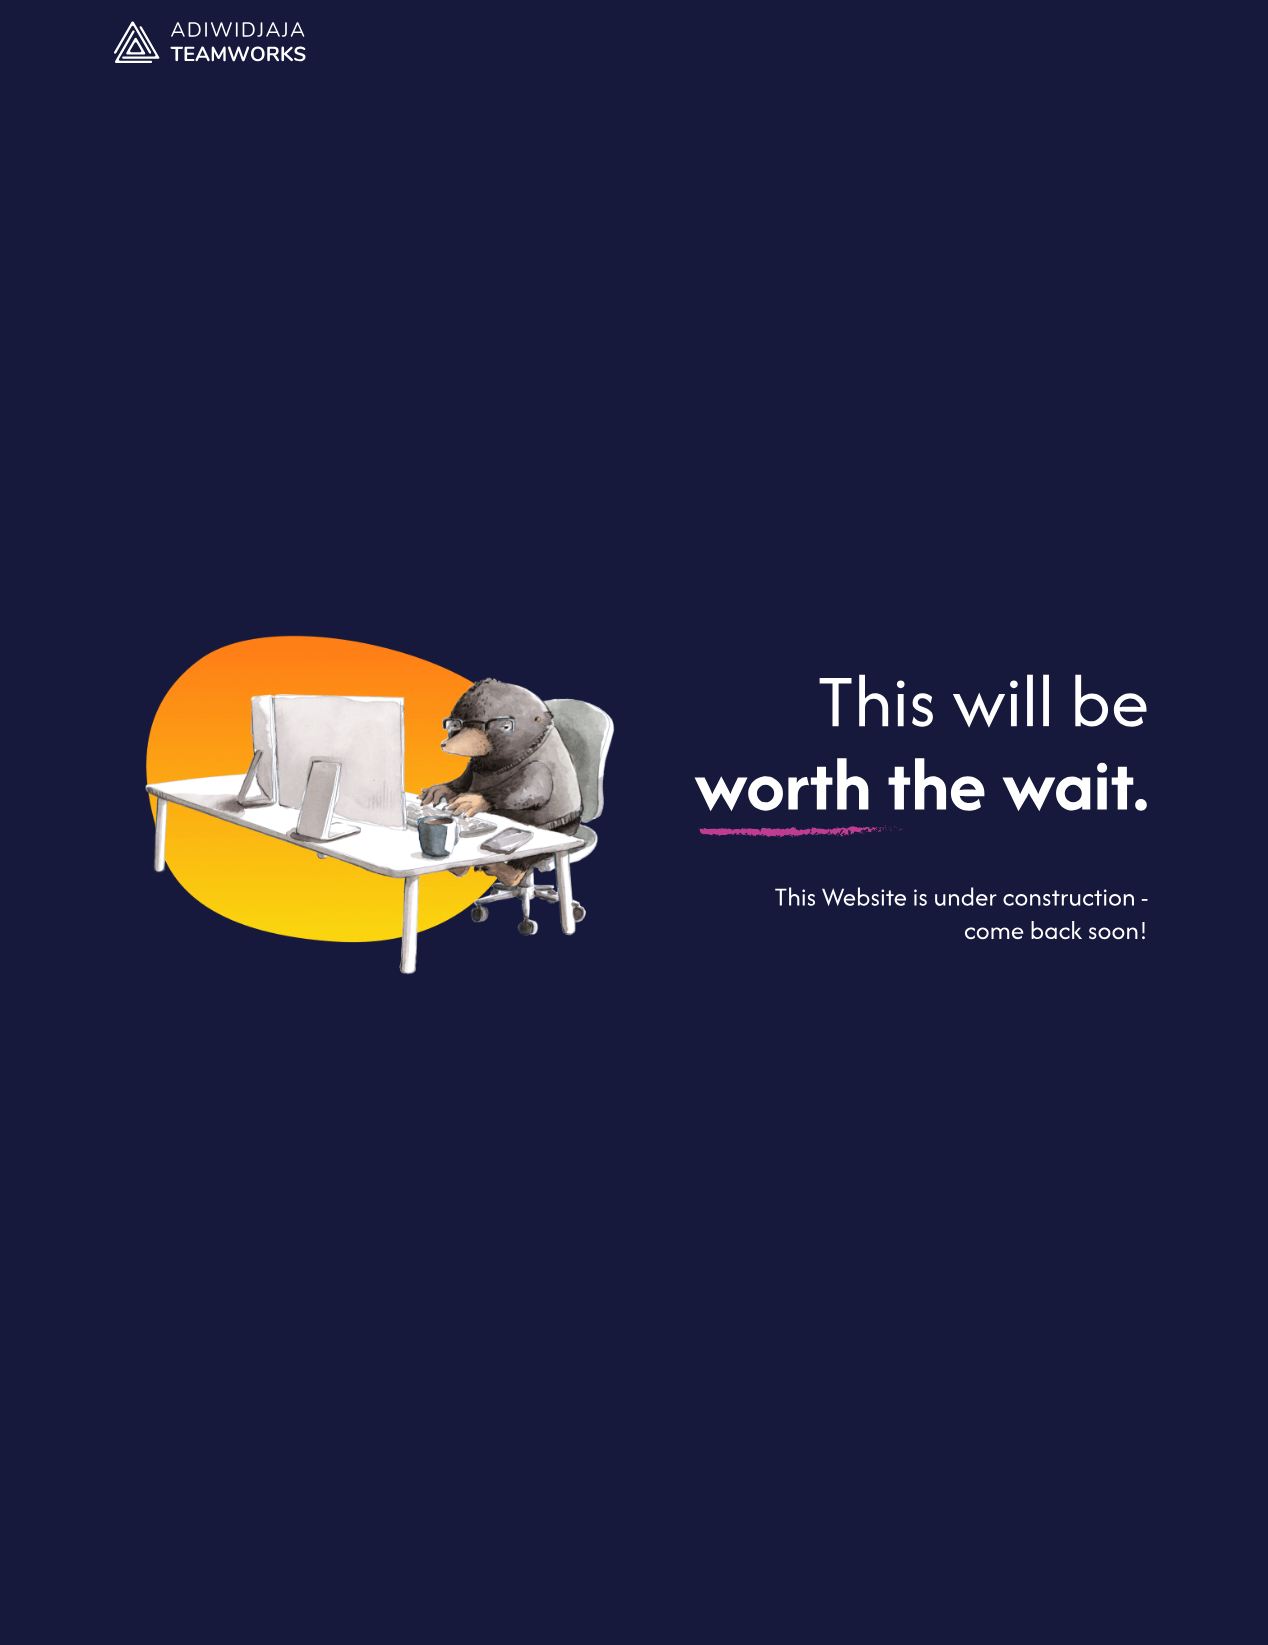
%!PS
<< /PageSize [1268 1645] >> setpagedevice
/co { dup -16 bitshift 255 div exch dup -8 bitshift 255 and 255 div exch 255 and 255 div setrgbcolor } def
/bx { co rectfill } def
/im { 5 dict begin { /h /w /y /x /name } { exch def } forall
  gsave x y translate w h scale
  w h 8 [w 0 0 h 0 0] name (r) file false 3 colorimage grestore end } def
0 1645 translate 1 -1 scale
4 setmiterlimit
0 0 1268 1645 16#16193B bx
(media/1.raw) 114 21 192 42 im
(media/2.raw) 145 635 470 340 im
(media/3.raw) 694 674 454 266 im
showpage
